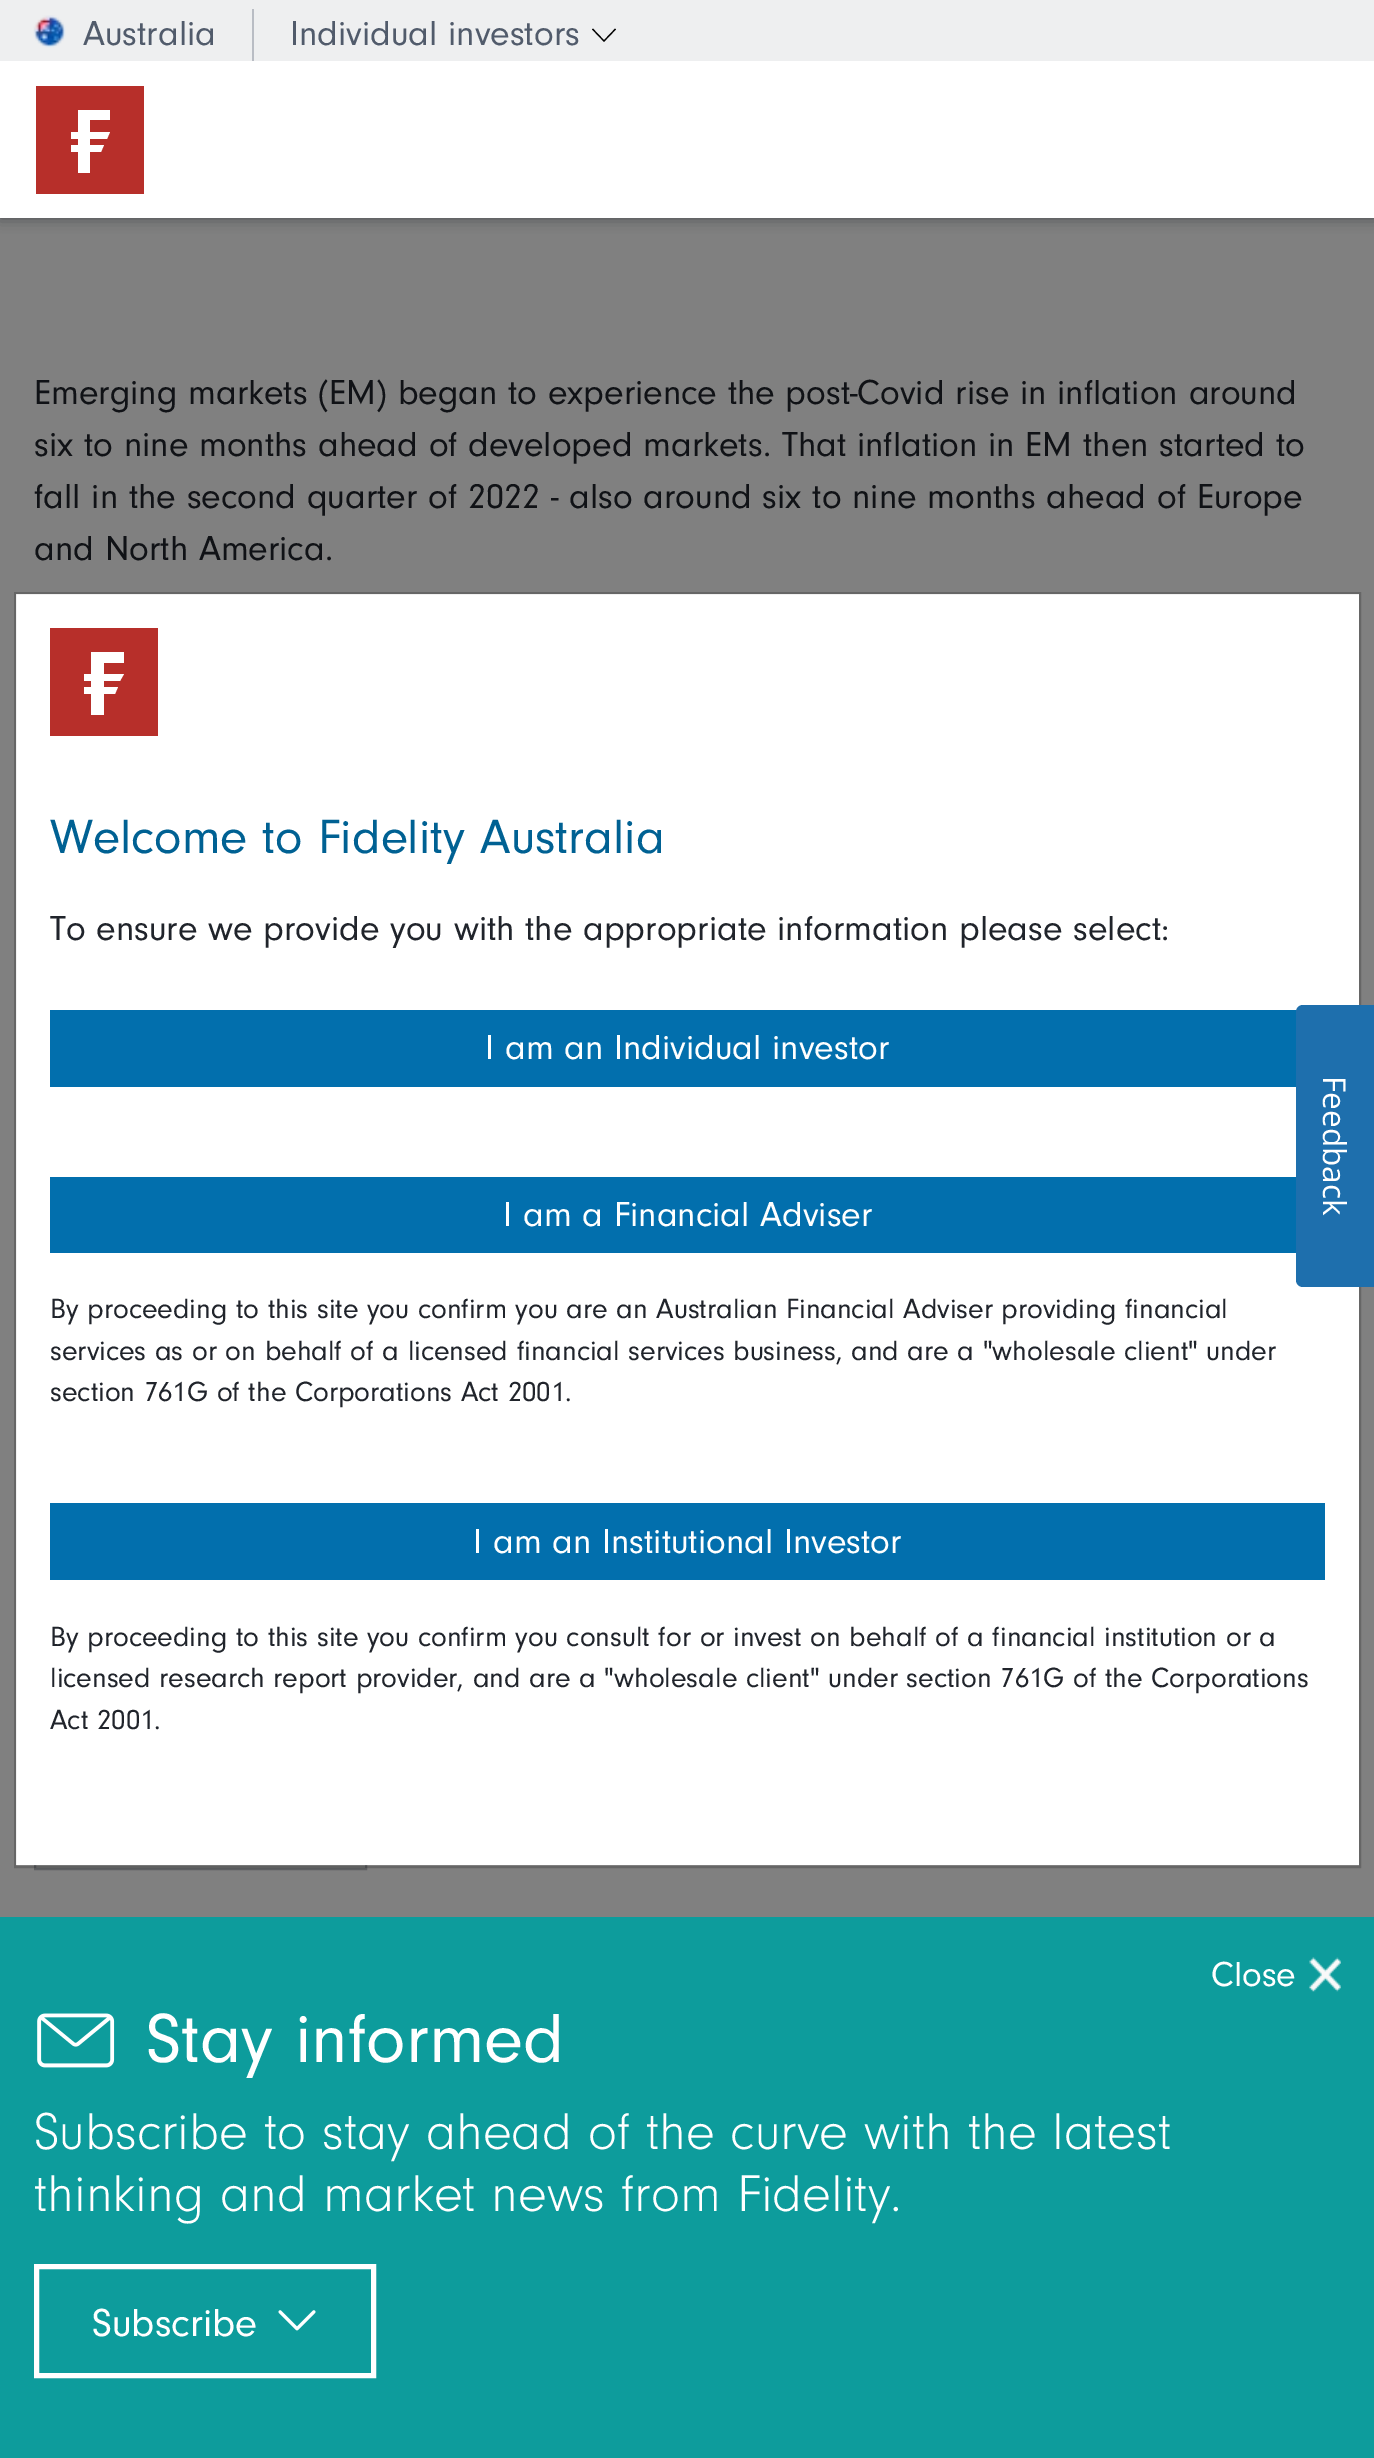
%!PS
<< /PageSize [1374 2458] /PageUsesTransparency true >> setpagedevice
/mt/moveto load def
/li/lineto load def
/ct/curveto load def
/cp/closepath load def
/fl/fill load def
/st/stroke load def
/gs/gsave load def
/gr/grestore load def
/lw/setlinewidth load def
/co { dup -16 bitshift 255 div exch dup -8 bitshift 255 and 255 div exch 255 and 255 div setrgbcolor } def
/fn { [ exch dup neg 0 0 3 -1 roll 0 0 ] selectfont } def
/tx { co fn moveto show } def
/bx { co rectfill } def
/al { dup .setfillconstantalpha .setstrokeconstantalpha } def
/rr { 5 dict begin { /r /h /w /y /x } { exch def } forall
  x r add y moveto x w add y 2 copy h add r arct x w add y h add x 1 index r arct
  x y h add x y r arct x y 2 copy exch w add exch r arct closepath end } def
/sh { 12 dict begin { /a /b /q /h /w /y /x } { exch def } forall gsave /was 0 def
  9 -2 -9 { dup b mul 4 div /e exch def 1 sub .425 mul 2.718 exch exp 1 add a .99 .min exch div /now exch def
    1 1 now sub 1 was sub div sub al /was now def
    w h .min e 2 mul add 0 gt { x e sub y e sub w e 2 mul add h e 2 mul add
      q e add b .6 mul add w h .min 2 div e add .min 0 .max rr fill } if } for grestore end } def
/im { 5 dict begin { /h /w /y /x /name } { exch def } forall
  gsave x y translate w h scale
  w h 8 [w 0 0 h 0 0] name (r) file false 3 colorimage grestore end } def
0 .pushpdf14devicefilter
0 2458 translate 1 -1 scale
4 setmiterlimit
0 0 1374 2458 16#808080 bx
16#20242B co
0 0 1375 218 0 7 .6 sh
0 61 1374 157 16#FFFFFF bx
0 0 1374 61 16#EEEFF0 bx
(media/1.raw) 33 15 33 33 im
252 9 2 52 16#B9BDC4 bx
16#000000 co
1.2 lw
615.5 29 mt 604 41 li 592.5 29 li st
36 86 108 108 16#B72F2A bx
16#FFFFFF co
110 120 mt 110 110 li 78 110 li 78 132 li 71 132 li 71 139 li 78 139 li 78 145 li 71 145 li 71 152 li 78 152 li 78 173 li 90 173 li 90 152 li 101 152 li 104 145 li 90 145 li 90 139 li 107 139 li 110 132 li 90 132 li 90 120 li cp eofill
36 1865 329 3 16#777878 bx
16#5D5F62 co
2 lw
35 1790 331 79 rectstroke
16 594 1343 1271 16#FFFFFF bx
0.2 al
16#000000 co
15 593 1345 1274 rectstroke
1 al
50 628 108 108 16#B72F2A bx
16#FFFFFF co
124 663 mt 124 652 li 91 652 li 91 674 li 84 674 li 84 681 li 91 681 li 91 687 li 84 687 li 84 694 li 91 694 li 91 715 li 104 715 li 104 694 li 115 694 li 118 687 li 104 687 li 104 681 li 120 681 li 124 674 li 104 674 li 104 663 li cp eofill
50 1010 1247 77 16#026FAD bx
50 1177 1246 76 16#026FAD bx
50 1503 1275 77 16#026FAD bx
16#1E6FAD co
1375 1005 mt 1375 1287 li 1303 1287 li 1299 1287 1296 1284 1296 1280 ct 1296 1012 li 1296 1008 1299 1005 1303 1005 ct cp fl
0 1917 1374 541 16#0D9C9C bx
(media/2.raw) 1309 1957 32 35 im
(media/3.raw) 37 2013 78 55 im
16#FFFFFF co
5 lw
36.5 2266.5 337 109 rectstroke
(media/4.raw) 278 2310 38 21 im
(Australia) 83 45 /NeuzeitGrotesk-Regular 36 16#515B6B tx
(Individual investors) 290 45 /NeuzeitGrotesk-Regular 36 16#515B6B tx
(Emerging markets \(EM\) began to experience the post-Covid rise in inflation around) 34 404 /NeuzeitGrotesk-Regular 36 16#101216 tx
(six to nine months ahead of developed markets. That inflation in EM then started to) 34 456 /NeuzeitGrotesk-Regular 36 16#101216 tx
(fall in the second quarter of 2022 - also around six to nine months ahead of Europe) 34 508 /NeuzeitGrotesk-Regular 36 16#101216 tx
(and North America.) 34 560 /NeuzeitGrotesk-Regular 36 16#101216 tx
(Welcome to Fidelity Australia) 50 853 /NeuzeitGrotesk-Regular 50 16#006193 tx
(To ensure we provide you with the appropriate information please select:) 50 940 /NeuzeitGrotesk-Regular 36 16#20242B tx
(I am an Individual investor) 485 1059 /NeuzeitGrotesk-Regular 36 16#FFFFFF tx
(I am a Financial Adviser) 503 1226 /NeuzeitGrotesk-Regular 36 16#FFFFFF tx
(By proceeding to this site you confirm you are an Australian Financial Adviser providing financial) 50 1318 /NeuzeitGrotesk-Regular 28.8 16#20242B tx
(services as or on behalf of a licensed financial services business, and are a "wholesale client" under) 50 1360 /NeuzeitGrotesk-Regular 28.8 16#20242B tx
(section 761G of the Corporations Act 2001.) 50 1401 /NeuzeitGrotesk-Regular 28.8 16#20242B tx
(I am an Institutional Investor) 473 1553 /NeuzeitGrotesk-Regular 36 16#FFFFFF tx
(By proceeding to this site you confirm you consult for or invest on behalf of a financial institution or a) 50 1646 /NeuzeitGrotesk-Regular 28.8 16#20242B tx
(licensed research report provider, and are a "wholesale client" under section 761G of the Corporations) 50 1687 /NeuzeitGrotesk-Regular 28.8 16#20242B tx
(Act 2001.) 50 1729 /NeuzeitGrotesk-Regular 28.8 16#20242B tx
/OpenSans-Regular 31.5 fn
16#FFFFFF co
gs 1323 1076 translate 90 rotate 0 0 mt (Feedback) show gr
(Close) 1211 1986 /NeuzeitGrotesk-Regular 36 16#FFFFFF tx
(Stay informed) 146 2062 /NeuzeitGrotesk-Regular 72 16#FFFFFF tx
(Subscribe to stay ahead of the curve with the latest) 34 2149 /NeuzeitGrotesk-Light 53.75 16#FFFFFF tx
(thinking and market news from Fidelity.) 34 2211 /NeuzeitGrotesk-Light 53.75 16#FFFFFF tx
(Subscribe) 92 2336 /NeuzeitGrotesk-Regular 40.5 16#FFFFFF tx
.poppdf14devicefilter showpage
